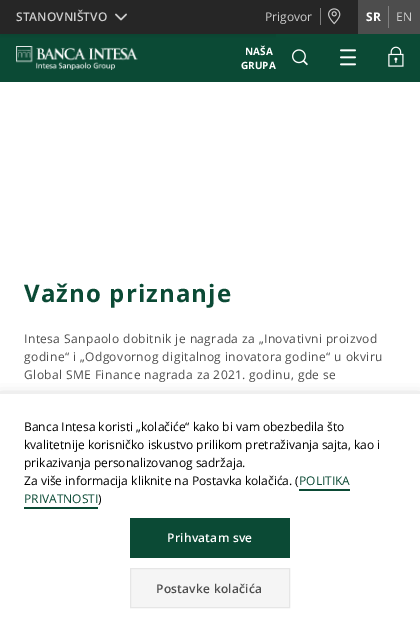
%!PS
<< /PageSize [420 632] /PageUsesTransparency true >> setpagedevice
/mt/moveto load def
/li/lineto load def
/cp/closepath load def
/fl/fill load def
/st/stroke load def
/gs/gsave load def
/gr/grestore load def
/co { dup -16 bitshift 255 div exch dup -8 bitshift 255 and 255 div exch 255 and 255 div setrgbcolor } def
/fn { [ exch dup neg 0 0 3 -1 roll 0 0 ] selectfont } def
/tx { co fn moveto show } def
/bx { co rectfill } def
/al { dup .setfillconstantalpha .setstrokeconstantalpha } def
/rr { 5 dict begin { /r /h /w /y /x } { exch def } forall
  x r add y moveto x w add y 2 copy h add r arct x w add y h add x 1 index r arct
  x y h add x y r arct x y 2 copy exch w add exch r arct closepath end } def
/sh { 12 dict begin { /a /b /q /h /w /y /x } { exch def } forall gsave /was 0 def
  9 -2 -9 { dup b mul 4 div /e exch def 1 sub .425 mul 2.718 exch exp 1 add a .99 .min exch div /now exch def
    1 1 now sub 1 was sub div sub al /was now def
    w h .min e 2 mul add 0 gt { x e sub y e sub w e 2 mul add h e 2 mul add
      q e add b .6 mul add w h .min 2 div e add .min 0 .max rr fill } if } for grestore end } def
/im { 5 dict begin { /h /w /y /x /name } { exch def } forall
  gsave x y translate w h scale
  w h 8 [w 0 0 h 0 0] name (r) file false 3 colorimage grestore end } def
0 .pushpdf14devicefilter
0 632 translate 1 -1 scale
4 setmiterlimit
0 0 420 632 16#FFFFFF bx
0 34 276 48 16#0B4A35 bx
16#000000 co
0 2 420 34 0 2 .1 sh
0 0 358 34 16#262626 bx
(media/1.raw) 115 13 12 8 im
320 8 1 17 16#808080 bx
(media/2.raw) 328 8 13 17 im
358 0 62 34 16#4D4D4D bx
388 6 1 22 16#808080 bx
(media/3.raw) 16 46 122 24 im
276 34 144 48 16#0B4A35 bx
(media/4.raw) 340 49 16 17 im
(media/5.raw) 292 49 16 17 im
(media/6.raw) 388 46 16 21 im
16#919191 co
0 400 420 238 0 7.5 1 sh
0 394 420 238 16#FFFFFF bx
299 489 51 2 16#0B4A35 bx
24 507 74 2 16#0B4A35 bx
130 518 160 40 16#0B4A35 bx
16#F5F5F5 co
130.5 568.5 mt 289.5 568.5 li 289.5 607.5 li 130.5 607.5 li cp gs fl gr
16#E6E6E6 co
st
(STANOVNIŠTVO) 16 21 /OpenSans-SemiBold 12 16#CCCCCC tx
(Prigovor) 265 21 /OpenSans-Regular 12 16#CCCCCC tx
(SR) 366 21 /OpenSans-Bold 12 16#FFFFFF tx
(EN) 396 21 /OpenSans-Regular 12 16#CCCCCC tx
(NAŠA) 245 55 /OpenSans-Bold 10 16#FFFFFF tx
(GRUPA) 241 69 /OpenSans-Bold 10 16#FFFFFF tx
/OpenSans-Bold 24 fn
16#0B4A35 co
24 302 mt 1.1 0 (Važno priznanje) ashow
/OpenSans-Regular 12 fn
16#4D4D4D co
24 343 mt .4 0 (Intesa Sanpaolo dobitnik je nagrada za „Inovativni proizvod) ashow
24 361 mt .4 0 (godine“ i „Odgovornog digitalnog inovatora godine“ u okviru) ashow
24 379 mt .4 0 (Global SME Finance nagrada za 2021. godinu, gde se) ashow
(Banca Intesa koristi „kolačiće“ kako bi vam obezbedila što) 24 431 /OpenSans-Regular 12 16#000000 tx
(kvalitetnije korisničko iskustvo prilikom pretraživanja sajta, kao i) 24 449 /OpenSans-Regular 12 16#000000 tx
(prikazivanja personalizovanog sadržaja.) 24 467 /OpenSans-Regular 12 16#000000 tx
(Za više informacija kliknite na Postavka kolačića. \() 24 485 /OpenSans-Regular 12 16#000000 tx
(POLITIKA) 299 485 /OpenSans-Regular 12 16#0B4A35 tx
(PRIVATNOSTI) 24 503 /OpenSans-Regular 12 16#0B4A35 tx
(\)) 98 503 /OpenSans-Regular 12 16#000000 tx
/OpenSans-SemiBold 12 fn
16#FFFFFF co
167 542 mt .25 0 (Prihvatam sve) ashow
16#4D4D4D co
156 593 mt .25 0 (Postavke kolačića) ashow
.poppdf14devicefilter showpage
